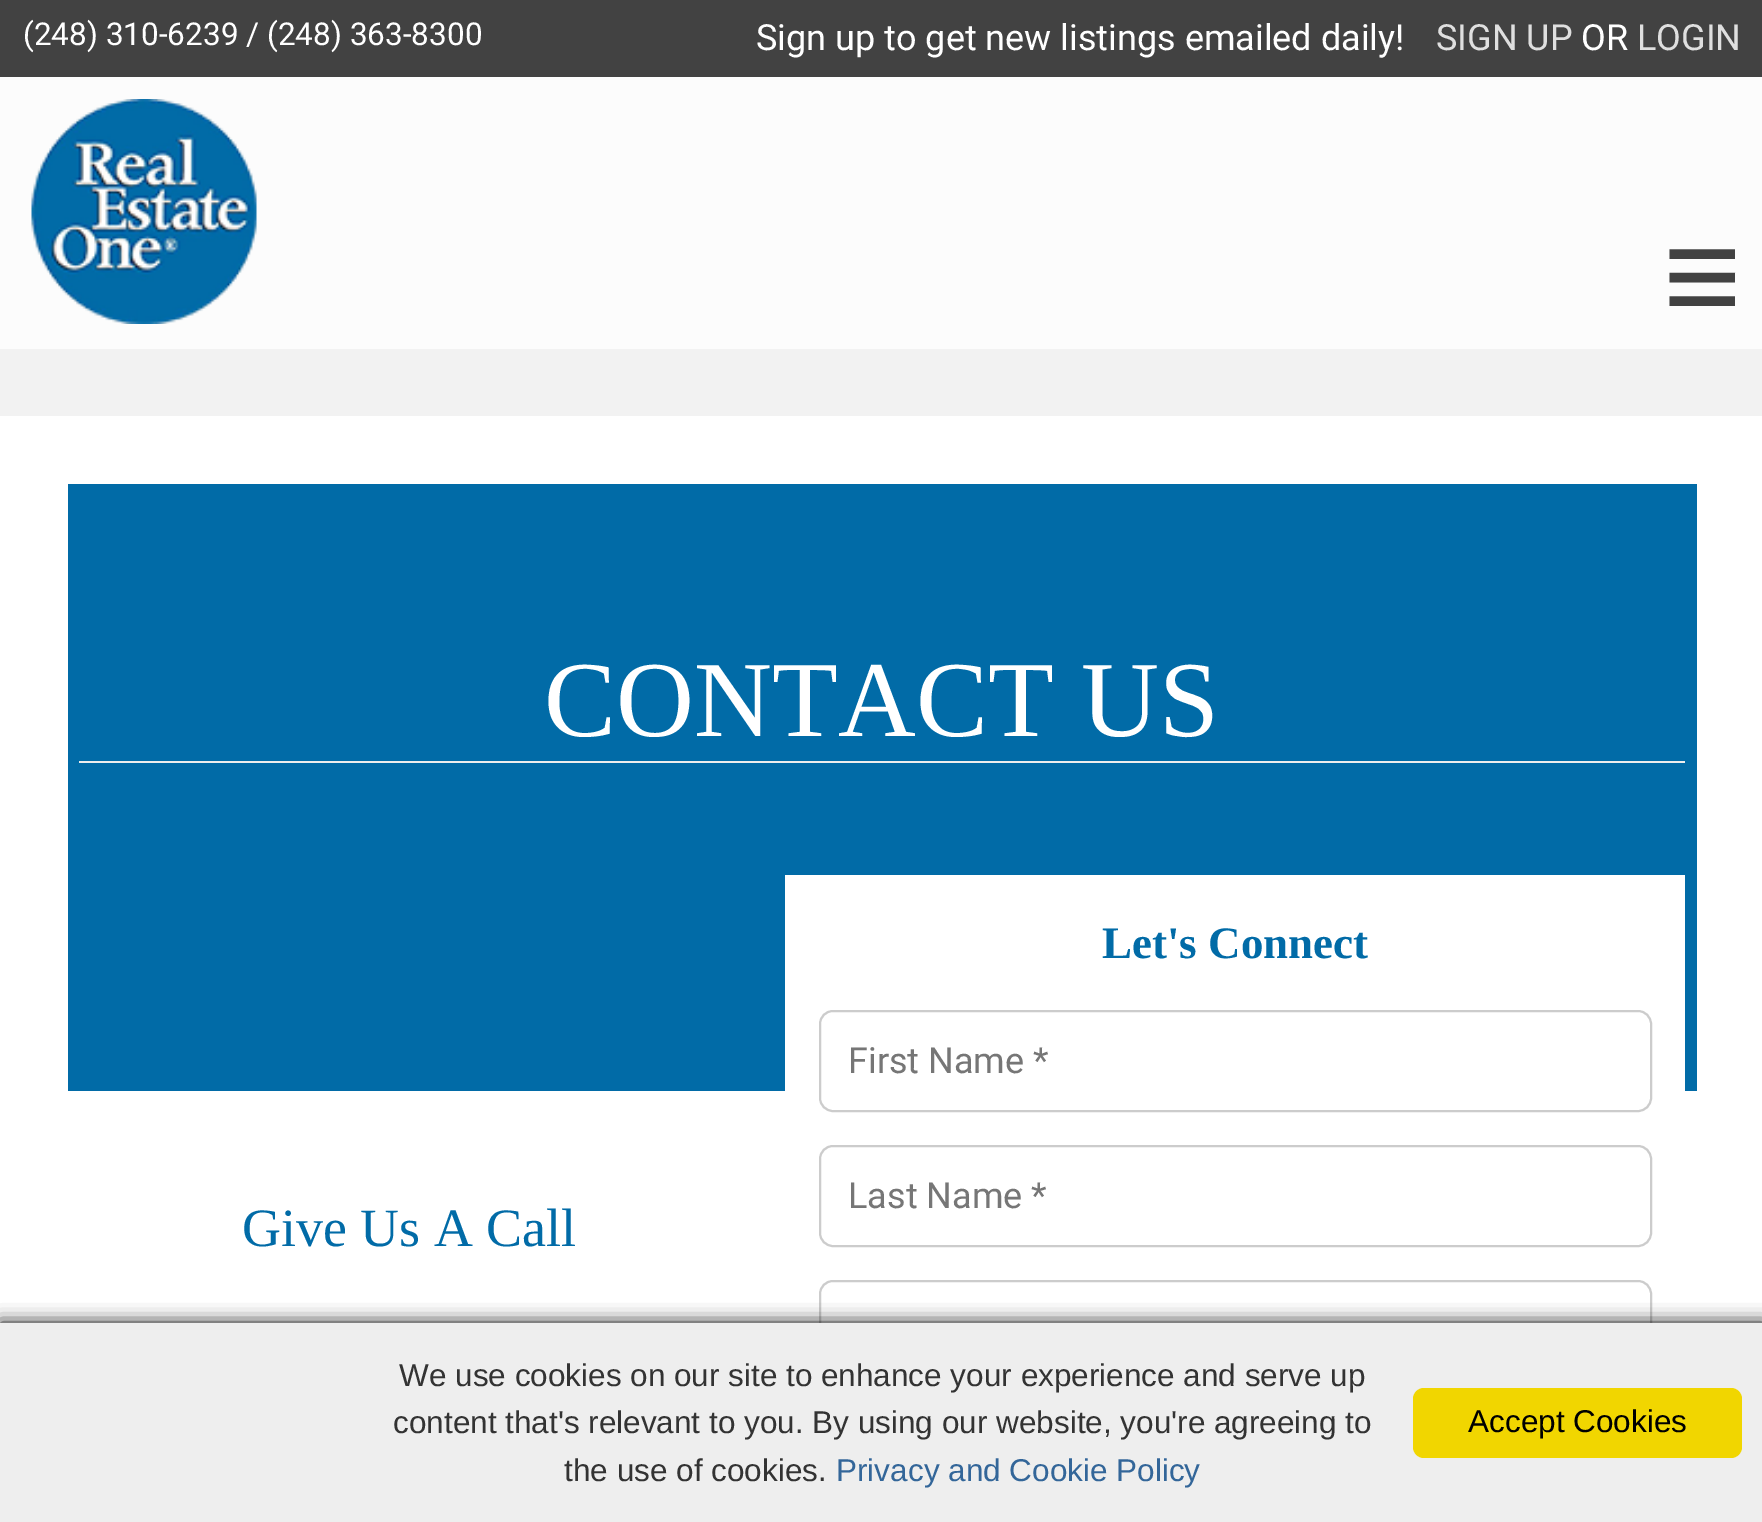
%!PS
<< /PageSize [1762 1522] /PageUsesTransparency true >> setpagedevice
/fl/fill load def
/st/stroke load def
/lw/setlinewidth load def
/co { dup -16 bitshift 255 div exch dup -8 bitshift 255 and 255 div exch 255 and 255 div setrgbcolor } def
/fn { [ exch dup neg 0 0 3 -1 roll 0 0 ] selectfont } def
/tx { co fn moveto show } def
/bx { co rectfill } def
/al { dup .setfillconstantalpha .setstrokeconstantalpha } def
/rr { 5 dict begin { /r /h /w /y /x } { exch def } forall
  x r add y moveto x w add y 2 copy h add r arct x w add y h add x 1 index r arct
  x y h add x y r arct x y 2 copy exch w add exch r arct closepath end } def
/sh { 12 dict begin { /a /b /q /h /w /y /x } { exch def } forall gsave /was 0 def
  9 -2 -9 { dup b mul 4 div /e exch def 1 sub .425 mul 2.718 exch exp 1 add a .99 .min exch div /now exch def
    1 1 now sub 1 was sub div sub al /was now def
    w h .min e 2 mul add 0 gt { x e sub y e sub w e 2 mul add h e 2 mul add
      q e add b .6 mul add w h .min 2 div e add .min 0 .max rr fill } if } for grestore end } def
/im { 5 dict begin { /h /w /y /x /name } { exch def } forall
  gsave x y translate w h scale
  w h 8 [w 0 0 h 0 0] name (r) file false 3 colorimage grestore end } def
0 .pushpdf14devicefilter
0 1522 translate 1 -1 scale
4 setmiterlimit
0 0 1762 1522 16#F2F2F2 bx
0 77 1762 272 16#FCFCFC bx
0 0 1762 77 16#424242 bx
(media/1.raw) 31 99 226 225 im
0 416 1762 907 16#FFFFFF bx
68 484 1629 607 16#016BA7 bx
79 761 1606 2 16#EEEEEE bx
785 875 900 216 16#FFFFFF bx
16#CCCCCC co
2 lw
820 1011 831 100 13 rr st
820 1146 831 100 13 rr st
820 1281 831 100 13 rr st
16#000000 co
0 1323 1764 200 0 9 1 sh
0 1323 1762 199 16#EEEEEE bx
16#F1D600 co
1413 1388 329 70 11 rr fl
(\(248\) 310-6239 / \(248\) 363-8300) 23 45 /Roboto-Regular 31.5 16#FFFFFF tx
(Sign up to get new listings emailed daily!) 756 50 /Roboto-Regular 36 16#FFFFFF tx
(SIGN UP) 1436 50 /Roboto-Regular 36 16#DFDFDF tx
(OR) 1581 50 /Roboto-Regular 36 16#FFFFFF tx
(LOGIN) 1637 50 /Roboto-Regular 36 16#DFDFDF tx
(≡) 1663 322 /LiberationSans-Regular 135 16#424242 tx
(CONTACT US) 544 736 /LiberationSerif-Regular 108 16#FFFFFF tx
(Let's Connect) 1102 958 /LiberationSerif-Bold 45 16#016BA7 tx
(First Name *) 848 1073 /Roboto-Regular 36 16#767676 tx
(Last Name *) 848 1208 /Roboto-Regular 36 16#767676 tx
(Give Us A Call) 242 1246 /LiberationSerif-Regular 54 16#016BA7 tx
(We use cookies on our site to enhance your experience and serve up) 399 1386 /LiberationSans-Regular 31.5 16#333333 tx
(content that's relevant to you. By using our website, you're agreeing to) 393 1433 /LiberationSans-Regular 31.5 16#333333 tx
(the use of cookies.) 564 1481 /LiberationSans-Regular 31.5 16#333333 tx
(Privacy and Cookie Policy) 836 1481 /LiberationSans-Regular 31.5 16#336699 tx
(Accept Cookies) 1468 1432 /LiberationSans-Regular 31.5 16#000000 tx
.poppdf14devicefilter showpage
